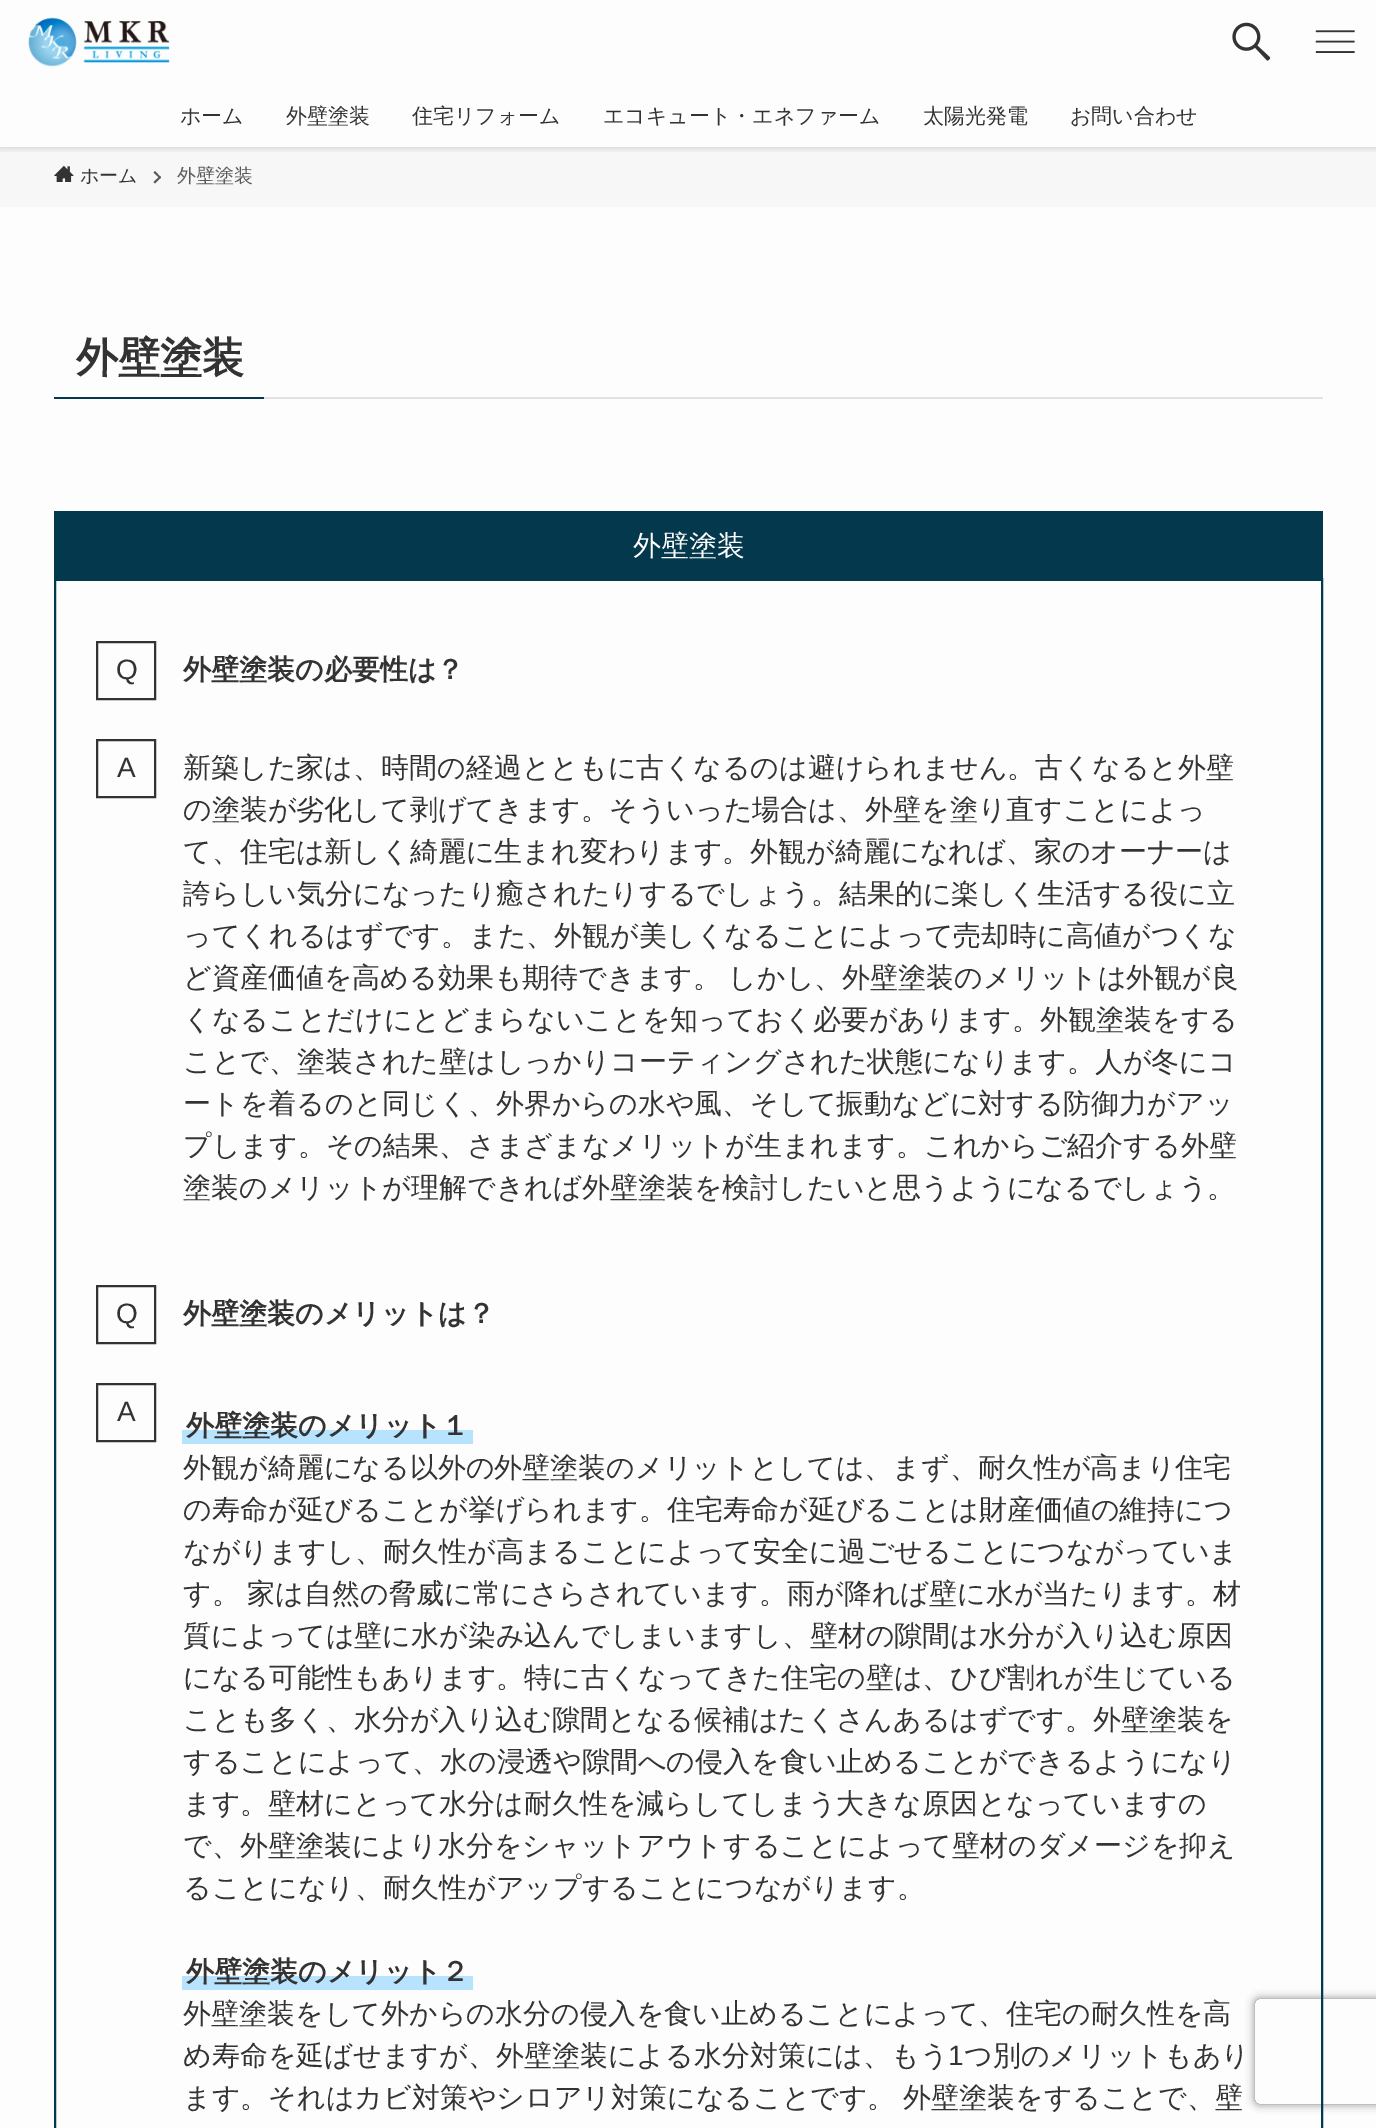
%!PS
<< /PageSize [1376 2128] /PageUsesTransparency true >> setpagedevice
/mt/moveto load def
/li/lineto load def
/ct/curveto load def
/cp/closepath load def
/fl/fill load def
/gs/gsave load def
/gr/grestore load def
/lw/setlinewidth load def
/co { dup -16 bitshift 255 div exch dup -8 bitshift 255 and 255 div exch 255 and 255 div setrgbcolor } def
/fn { [ exch dup neg 0 0 3 -1 roll 0 0 ] selectfont } def
/tx { co fn moveto show } def
/bx { co rectfill } def
/al { dup .setfillconstantalpha .setstrokeconstantalpha } def
/rr { 5 dict begin { /r /h /w /y /x } { exch def } forall
  x r add y moveto x w add y 2 copy h add r arct x w add y h add x 1 index r arct
  x y h add x y r arct x y 2 copy exch w add exch r arct closepath end } def
/sh { 12 dict begin { /a /b /q /h /w /y /x } { exch def } forall gsave /was 0 def
  9 -2 -9 { dup b mul 4 div /e exch def 1 sub .425 mul 2.718 exch exp 1 add a .99 .min exch div /now exch def
    1 1 now sub 1 was sub div sub al /was now def
    w h .min e 2 mul add 0 gt { x e sub y e sub w e 2 mul add h e 2 mul add
      q e add b .6 mul add w h .min 2 div e add .min 0 .max rr fill } if } for grestore end } def
/im { 5 dict begin { /h /w /y /x /name } { exch def } forall
  gsave x y translate w h scale
  w h 8 [w 0 0 h 0 0] name (r) file false 3 colorimage grestore end } def
0 .pushpdf14devicefilter
0 2128 translate 1 -1 scale
4 setmiterlimit
0 0 1376 2128 16#FDFDFD bx
0 147 1376 60 16#F7F7F7 bx
gs
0 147 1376 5 rectclip
16#000000 co
0 2 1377 147 0 3.5 .12 sh
gr
(media/1.raw) 28 17 142 50 im
(media/2.raw) 1232 22 39 39 im
(media/3.raw) 1315 30 40 23 im
(media/4.raw) 54 165 20 17 im
16#5A5A5A co
155 171 mt 161 177.5 li 160 178.5 li 153.5 172.5 li cp fl
160 176 mt 161 177.5 li 155 183.5 li 153.5 182 li cp fl
264 397 1059 2 16#E3E3E3 bx
54 397 210 2 16#04384C bx
gs
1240 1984 mt 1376 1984 li 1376 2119 li 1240 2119 li cp 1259 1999 mt 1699 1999 li 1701 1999 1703 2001 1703 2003 ct 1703 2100 li 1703 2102 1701 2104 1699 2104 ct 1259 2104 li 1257 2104 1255 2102 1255 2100 ct 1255 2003 li 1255 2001 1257 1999 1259 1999 ct cp eoclip newpath
16#808080 co
1255 1999 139 105 4 4.5 1 sh
gr
2 lw
55 579 1267 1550 rectstroke
54 511 1269 70 16#04384C bx
16#333333 co
97 642 58 57 rectstroke
97 740 58 57 rectstroke
97 1286 58 57 rectstroke
97 1384 58 57 rectstroke
182 1430 291 14 16#B7E3FF bx
182 1976 291 14 16#B7E3FF bx
(ホーム) 180 123 /WenQuanYiZenHei-Medium 21 16#333333 tx
(外壁塗装) 286 123 /WenQuanYiZenHei-Medium 21 16#333333 tx
(住宅リフォーム) 412 123 /WenQuanYiZenHei-Medium 21 16#333333 tx
(エコキュート・エネファーム) 603 123 /WenQuanYiZenHei-Medium 21 16#333333 tx
(太陽光発電) 923 123 /WenQuanYiZenHei-Medium 21 16#333333 tx
(お問い合わせ) 1070 123 /WenQuanYiZenHei-Medium 21 16#333333 tx
(ホーム) 80 182 /WenQuanYiZenHei-Medium 19 16#333333 tx
(外壁塗装) 177 182 /WenQuanYiZenHei-Medium 19 16#5A5A5A tx
(外壁塗装) 76 372 /WenQuanYiZenHei-Bold 42 16#333333 tx
(外壁塗装) 633 555 /WenQuanYiZenHei-Medium 28 16#FFFFFF tx
(Q) 116 679 /LiberationSans-Regular 28 16#333333 tx
(外壁塗装の必要性は？) 183 679 /WenQuanYiZenHei-Bold 28 16#333333 tx
(A) 117 777 /LiberationSans-Regular 28 16#333333 tx
(新築した家は、時間の経過とともに古くなるのは避けられません。古くなると外壁) 183 777 /WenQuanYiZenHei-Medium 28 16#333333 tx
(の塗装が劣化して剥げてきます。そういった場合は、外壁を塗り直すことによっ) 183 819 /WenQuanYiZenHei-Medium 28 16#333333 tx
(て、住宅は新しく綺麗に生まれ変わります。外観が綺麗になれば、家のオーナーは) 183 861 /WenQuanYiZenHei-Medium 28 16#333333 tx
(誇らしい気分になったり癒されたりするでしょう。結果的に楽しく生活する役に立) 183 903 /WenQuanYiZenHei-Medium 28 16#333333 tx
(ってくれるはずです。また、外観が美しくなることによって売却時に高値がつくな) 183 945 /WenQuanYiZenHei-Medium 28 16#333333 tx
183 987 mt -1 0 32 (ど資産価値を高める効果も期待できます。 しかし、外壁塗装のメリットは外観が良) widthshow
(くなることだけにとどまらないことを知っておく必要があります。外観塗装をする) 183 1029 /WenQuanYiZenHei-Medium 28 16#333333 tx
(ことで、塗装された壁はしっかりコーティングされた状態になります。人が冬にコ) 183 1071 /WenQuanYiZenHei-Medium 28 16#333333 tx
(ートを着るのと同じく、外界からの水や風、そして振動などに対する防御力がアッ) 183 1113 /WenQuanYiZenHei-Medium 28 16#333333 tx
(プします。その結果、さまざまなメリットが生まれます。これからご紹介する外壁) 183 1155 /WenQuanYiZenHei-Medium 28 16#333333 tx
(塗装のメリットが理解できれば外壁塗装を検討したいと思うようになるでしょう。) 183 1197 /WenQuanYiZenHei-Medium 28 16#333333 tx
(Q) 116 1323 /LiberationSans-Regular 28 16#333333 tx
(外壁塗装のメリットは？) 183 1323 /WenQuanYiZenHei-Bold 28 16#333333 tx
(A) 117 1421 /LiberationSans-Regular 28 16#333333 tx
(外壁塗装のメリット１) 186 1435 /WenQuanYiZenHei-Bold 28 16#333333 tx
(外観が綺麗になる以外の外壁塗装のメリットとしては、まず、耐久性が高まり住宅) 183 1477 /WenQuanYiZenHei-Medium 28 16#333333 tx
(の寿命が延びることが挙げられます。住宅寿命が延びることは財産価値の維持につ) 183 1519 /WenQuanYiZenHei-Medium 28 16#333333 tx
(ながりますし、耐久性が高まることによって安全に過ごせることにつながっていま) 183 1561 /WenQuanYiZenHei-Medium 28 16#333333 tx
183 1603 mt -1 0 32 (す。 家は自然の脅威に常にさらされています。雨が降れば壁に水が当たります。材) widthshow
(質によっては壁に水が染み込んでしまいますし、壁材の隙間は水分が入り込む原因) 183 1645 /WenQuanYiZenHei-Medium 28 16#333333 tx
(になる可能性もあります。特に古くなってきた住宅の壁は、ひび割れが生じている) 183 1687 /WenQuanYiZenHei-Medium 28 16#333333 tx
(ことも多く、水分が入り込む隙間となる候補はたくさんあるはずです。外壁塗装を) 183 1729 /WenQuanYiZenHei-Medium 28 16#333333 tx
(することによって、水の浸透や隙間への侵入を食い止めることができるようになり) 183 1771 /WenQuanYiZenHei-Medium 28 16#333333 tx
(ます。壁材にとって水分は耐久性を減らしてしまう大きな原因となっていますの) 183 1813 /WenQuanYiZenHei-Medium 28 16#333333 tx
(で、外壁塗装により水分をシャットアウトすることによって壁材のダメージを抑え) 183 1855 /WenQuanYiZenHei-Medium 28 16#333333 tx
(ることになり、耐久性がアップすることにつながります。) 183 1897 /WenQuanYiZenHei-Medium 28 16#333333 tx
(外壁塗装のメリット２) 186 1981 /WenQuanYiZenHei-Bold 28 16#333333 tx
(外壁塗装をして外からの水分の侵入を食い止めることによって、住宅の耐久性を高) 183 2023 /WenQuanYiZenHei-Medium 28 16#333333 tx
(め寿命を延ばせますが、外壁塗装による水分対策には、もう) 183 2065 /WenQuanYiZenHei-Medium 28 16#333333 tx
(1) 948 2065 /LiberationSans-Regular 28 16#333333 tx
(つ別のメリットもあり) 964 2065 /WenQuanYiZenHei-Medium 28 16#333333 tx
183 2107 mt -1 0 32 (ます。それはカビ対策やシロアリ対策になることです。 外壁塗装をすることで、壁) widthshow
.poppdf14devicefilter showpage
